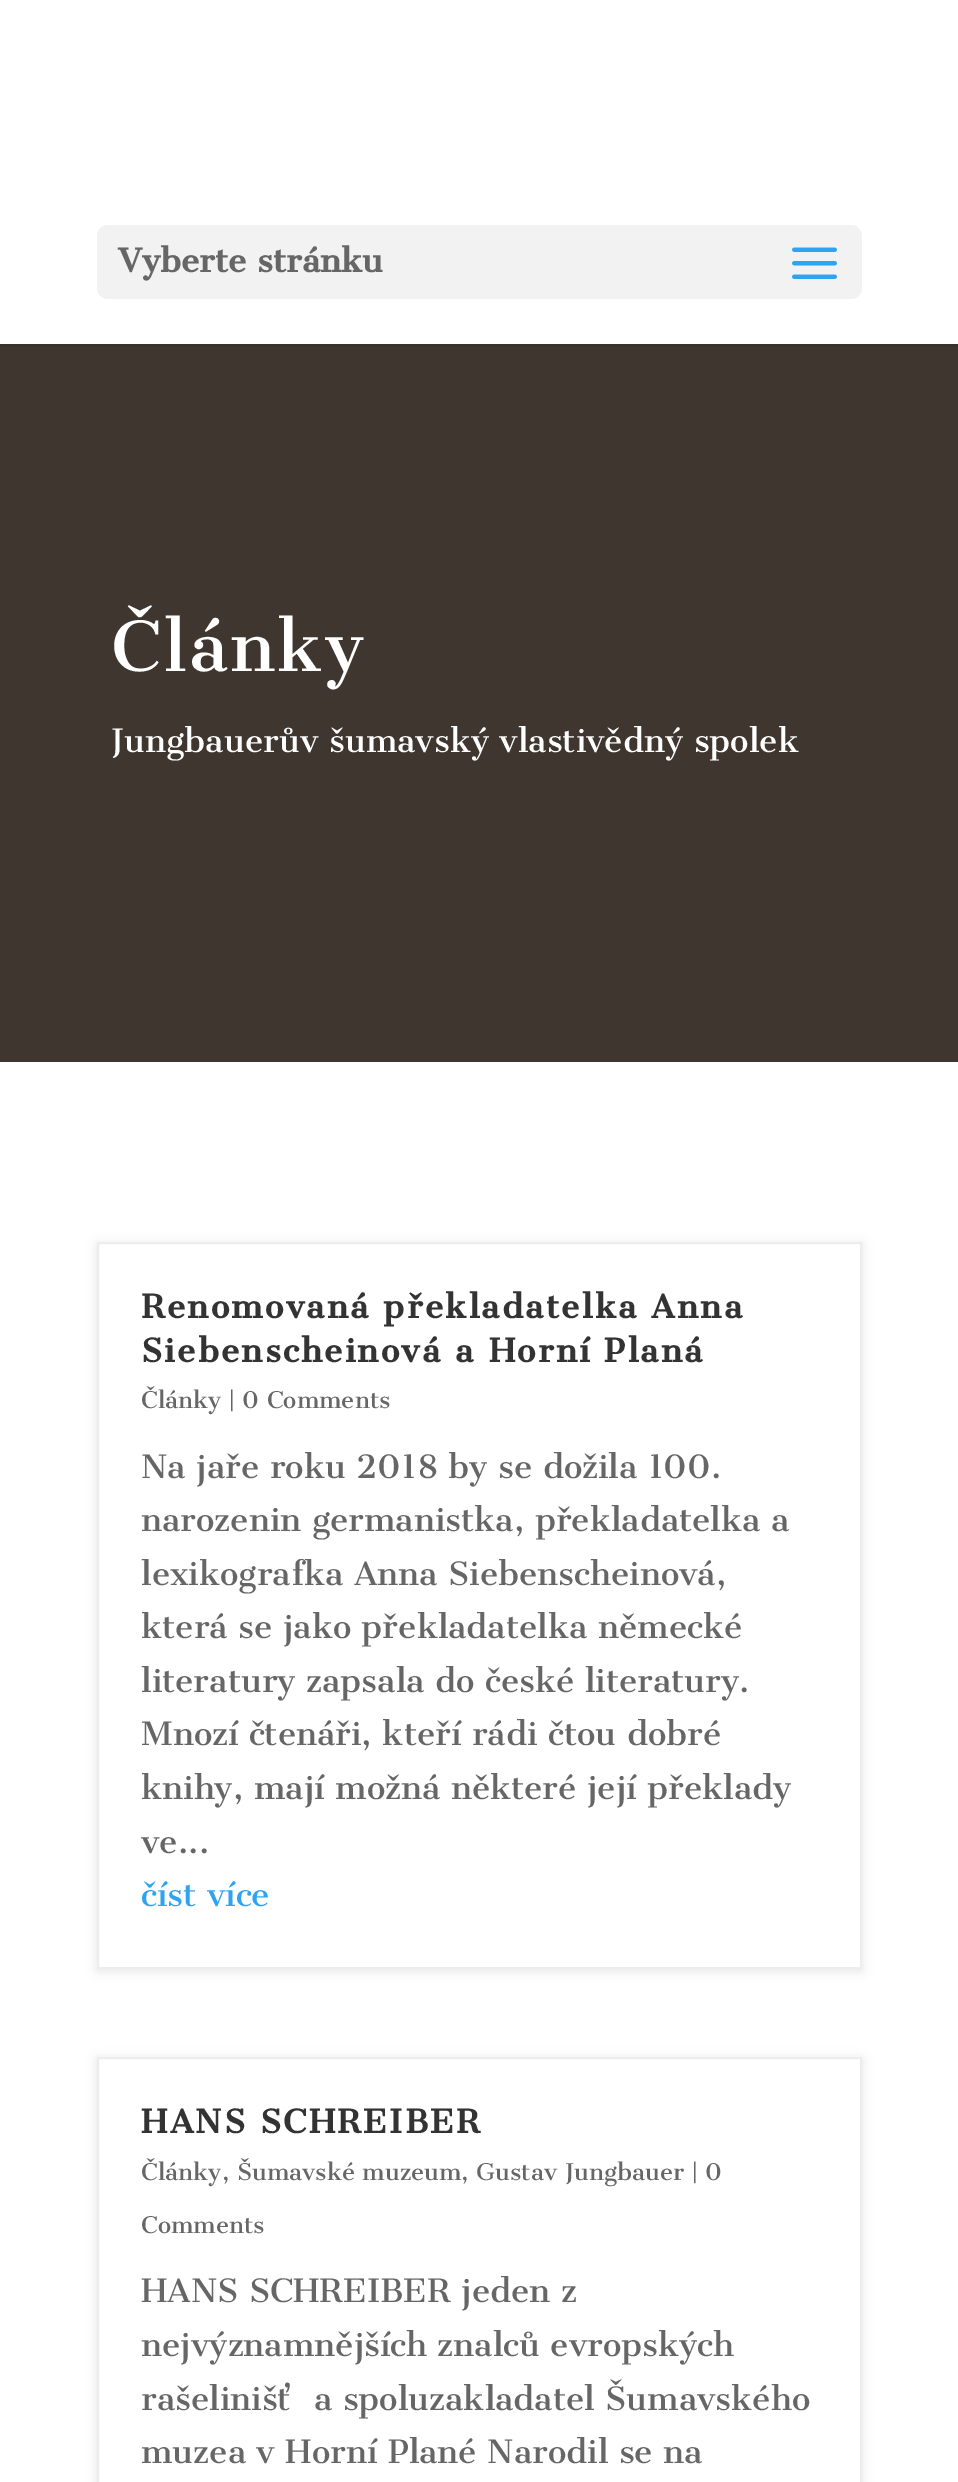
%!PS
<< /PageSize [958 2482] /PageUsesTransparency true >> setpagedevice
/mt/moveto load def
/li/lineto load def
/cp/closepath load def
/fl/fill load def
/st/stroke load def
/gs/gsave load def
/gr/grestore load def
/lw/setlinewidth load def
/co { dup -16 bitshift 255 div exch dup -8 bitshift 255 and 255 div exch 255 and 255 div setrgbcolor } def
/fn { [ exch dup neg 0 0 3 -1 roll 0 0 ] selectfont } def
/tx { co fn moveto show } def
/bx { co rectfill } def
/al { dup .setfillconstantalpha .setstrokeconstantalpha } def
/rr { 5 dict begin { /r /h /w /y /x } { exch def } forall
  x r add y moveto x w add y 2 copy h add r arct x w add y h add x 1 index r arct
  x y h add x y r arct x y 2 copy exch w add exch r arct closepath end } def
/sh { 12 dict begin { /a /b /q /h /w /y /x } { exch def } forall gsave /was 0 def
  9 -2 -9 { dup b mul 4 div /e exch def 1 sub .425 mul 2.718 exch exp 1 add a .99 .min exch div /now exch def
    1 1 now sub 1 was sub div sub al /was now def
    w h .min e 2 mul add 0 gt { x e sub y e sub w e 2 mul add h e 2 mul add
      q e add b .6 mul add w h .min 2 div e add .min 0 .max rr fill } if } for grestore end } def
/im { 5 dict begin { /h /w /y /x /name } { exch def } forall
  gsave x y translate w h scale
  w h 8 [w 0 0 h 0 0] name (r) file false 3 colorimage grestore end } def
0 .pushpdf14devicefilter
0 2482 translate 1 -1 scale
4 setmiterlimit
0 0 958 2482 16#FFFFFF bx
16#39312A co
0 344 mt 0 347 li 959 347 li 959 2 li 958 2 li 958 344 li cp fl
16#F2F2F2 co
97 225 765 74 11 rr fl
(media/1.raw) 792 247 45 32 im
0 347 958 715 16#3F362F bx
16#000000 co
97 1244 765 727 0 5.5 .1 sh
16#FFFFFF co
98 1243 mt 861 1243 li 861 1968 li 98 1968 li cp gs fl gr
16#EDEDED co
2 lw
st
16#000000 co
97 2059 765 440 0 5.5 .1 sh
16#FFFFFF co
98 2058 mt 861 2058 li 861 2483 li 98 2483 li cp gs fl gr
16#EDEDED co
st
(Vyberte stránku) 118 272 /CantataOne-Bold 31.5 16#666666 tx
/CantataOne-Regular 67.5 fn
16#FFFFFF co
111 671 mt 2.25 0 (Články) ashow
(Jungbauerův šumavský vlastivědný spolek) 111 752 /CantataOne-Regular 31.5 16#FFFFFF tx
/CantataOne-Bold 31.5 fn
16#333333 co
141 1318 mt 2.25 0 (Renomovaná překladatelka Anna) ashow
141 1362 mt 2.25 0 (Siebenscheinová a Horní Planá) ashow
(Články | 0 Comments) 141 1408 /CantataOne-Regular 22.5 16#666666 tx
(Na jaře roku 2018 by se dožila 100.) 141 1478 /CantataOne-Regular 31.5 16#666666 tx
(narozenin germanistka, překladatelka a) 141 1531 /CantataOne-Regular 31.5 16#666666 tx
(lexikografka Anna Siebenscheinová,) 141 1585 /CantataOne-Regular 31.5 16#666666 tx
(která se jako překladatelka německé) 141 1638 /CantataOne-Regular 31.5 16#666666 tx
(literatury zapsala do české literatury.) 141 1692 /CantataOne-Regular 31.5 16#666666 tx
(Mnozí čtenáři, kteří rádi čtou dobré) 141 1745 /CantataOne-Regular 31.5 16#666666 tx
(knihy, mají možná některé její překlady) 141 1799 /CantataOne-Regular 31.5 16#666666 tx
(ve...) 141 1853 /CantataOne-Regular 31.5 16#666666 tx
(číst více) 141 1906 /CantataOne-Regular 31.5 16#2EA3F2 tx
/CantataOne-Bold 31.5 fn
16#333333 co
141 2133 mt 2.25 0 (HANS SCHREIBER) ashow
(Články, Šumavské muzeum, Gustav Jungbauer | 0) 141 2180 /CantataOne-Regular 22.5 16#666666 tx
(Comments) 141 2233 /CantataOne-Regular 22.5 16#666666 tx
(HANS SCHREIBER jeden z) 141 2302 /CantataOne-Regular 31.5 16#666666 tx
(nejvýznamnějších znalců evropských) 141 2356 /CantataOne-Regular 31.5 16#666666 tx
(rašelinišť  a spoluzakladatel Šumavského) 141 2410 /CantataOne-Regular 31.5 16#666666 tx
(muzea v Horní Plané Narodil se na) 141 2463 /CantataOne-Regular 31.5 16#666666 tx
.poppdf14devicefilter showpage
